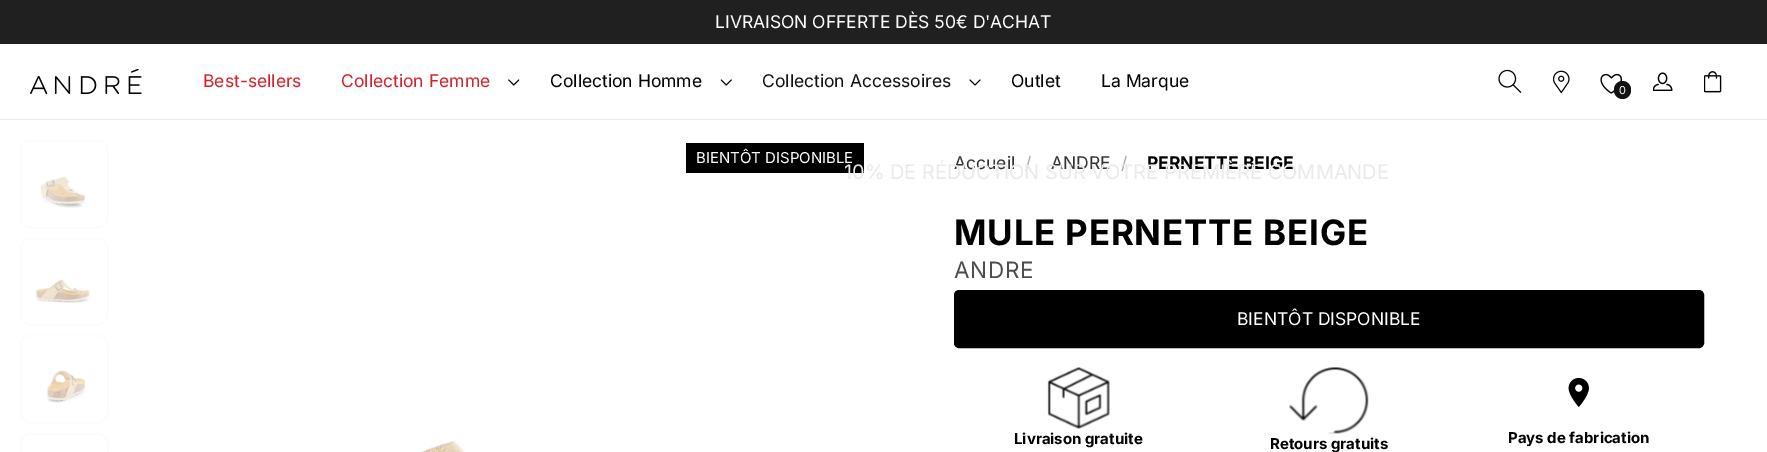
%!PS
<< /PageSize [1767 452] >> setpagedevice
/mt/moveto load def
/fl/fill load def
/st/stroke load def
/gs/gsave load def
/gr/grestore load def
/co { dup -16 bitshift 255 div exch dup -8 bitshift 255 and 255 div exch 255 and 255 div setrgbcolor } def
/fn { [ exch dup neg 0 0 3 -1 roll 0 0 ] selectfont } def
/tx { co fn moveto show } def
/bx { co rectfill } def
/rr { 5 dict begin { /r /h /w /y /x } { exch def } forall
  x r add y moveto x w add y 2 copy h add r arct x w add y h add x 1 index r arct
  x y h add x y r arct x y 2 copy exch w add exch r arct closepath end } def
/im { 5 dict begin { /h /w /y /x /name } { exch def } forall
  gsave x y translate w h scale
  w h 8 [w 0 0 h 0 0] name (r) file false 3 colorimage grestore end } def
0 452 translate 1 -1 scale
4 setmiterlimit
0 0 1767 452 16#FFFFFF bx
0 0 1767 44 16#202020 bx
0 119 1767 1 16#EBEBEB bx
(media/1.raw) 30 69 112 25 im
(media/2.raw) 508 79 12 7 im
(media/3.raw) 720 79 12 7 im
(media/4.raw) 969 79 12 7 im
(media/5.raw) 1498 69 24 24 im
(media/6.raw) 1553 70 17 24 im
(media/7.raw) 1600 73 23 21 im
16#121212 co
1614 81 17 18 8.5 rr fl
(media/8.raw) 1653 72 20 19 im
(media/9.raw) 1704 71 18 22 im
16#FBFBFC co
20.5 140.5 87 87 9.5 rr st
(media/10.raw) 40 176 46 32 im
20.5 238.5 87 86 9.5 rr st
(media/11.raw) 35 279 55 25 im
20.5 335.5 87 87 9.5 rr st
(media/12.raw) 46 370 40 33 im
20.5 433.5 87 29 9.5 rr st
686 143 178 30 16#000000 bx
(media/13.raw) 421 440 44 12 im
954.5 290.5 749 57 4.5 rr gs fl gr
st
(media/14.raw) 1047 367 63 62 im
(media/15.raw) 1289 367 80 67 im
(media/16.raw) 1568 377 21 30 im
(LIVRAISON OFFERTE DÈS 50€ D'ACHAT) 715 28 /Inter-Regular 17.5 16#FFFFFF tx
(Best-sellers) 203 87 /Inter-Regular 17.5 16#D2232A tx
(Collection Femme) 341 87 /Inter-Regular 17.5 16#D2232A tx
(Collection Homme) 550 87 /Inter-Regular 17.5 16#000000 tx
(Collection Accessoires) 762 87 /Inter-Regular 17.5 16#121212 tx
(Outlet) 1011 87 /Inter-Regular 17.5 16#000000 tx
(La Marque) 1101 87 /Inter-Regular 17.5 16#000000 tx
(0) 1619 94 /Inter-Regular 11 16#FFFFFF tx
(BIENTÔT DISPONIBLE) 696 163 /Inter-Regular 15 16#FFFFFF tx
(Accueil) 954 169 /Inter-Regular 17.5 16#333333 tx
(/) 1025 169 /Inter-Regular 17.5 16#AAAAAA tx
(ANDRE) 1051 169 /Inter-Regular 17.5 16#333333 tx
(/) 1121 169 /Inter-Regular 17.5 16#AAAAAA tx
(PERNETTE BEIGE) 1147 169 /Inter-Bold 17.5 16#000000 tx
/Inter-Bold 35 fn
954 245 mt .75 0 (MULE PERNETTE BEIGE) ashow
/Inter-Regular 22.5 fn
16#4D4D4D co
954 278 mt .75 0 (ANDRE) ashow
(BIENTÔT DISPONIBLE) 1237 325 /Inter-Regular 17.5 16#FFFFFF tx
(Livraison gratuite) 1014 444 /Inter-Bold 15 16#000000 tx
(Retours gratuits) 1270 449 /Inter-Bold 15 16#000000 tx
(Pays de fabrication) 1508 443 /Inter-Bold 15 16#000000 tx
(10% DE RÉDUCTION SUR VOTRE PREMIÈRE COMMANDE) 844 179 /Inter-Regular 20 16#EAEAEA tx
showpage
